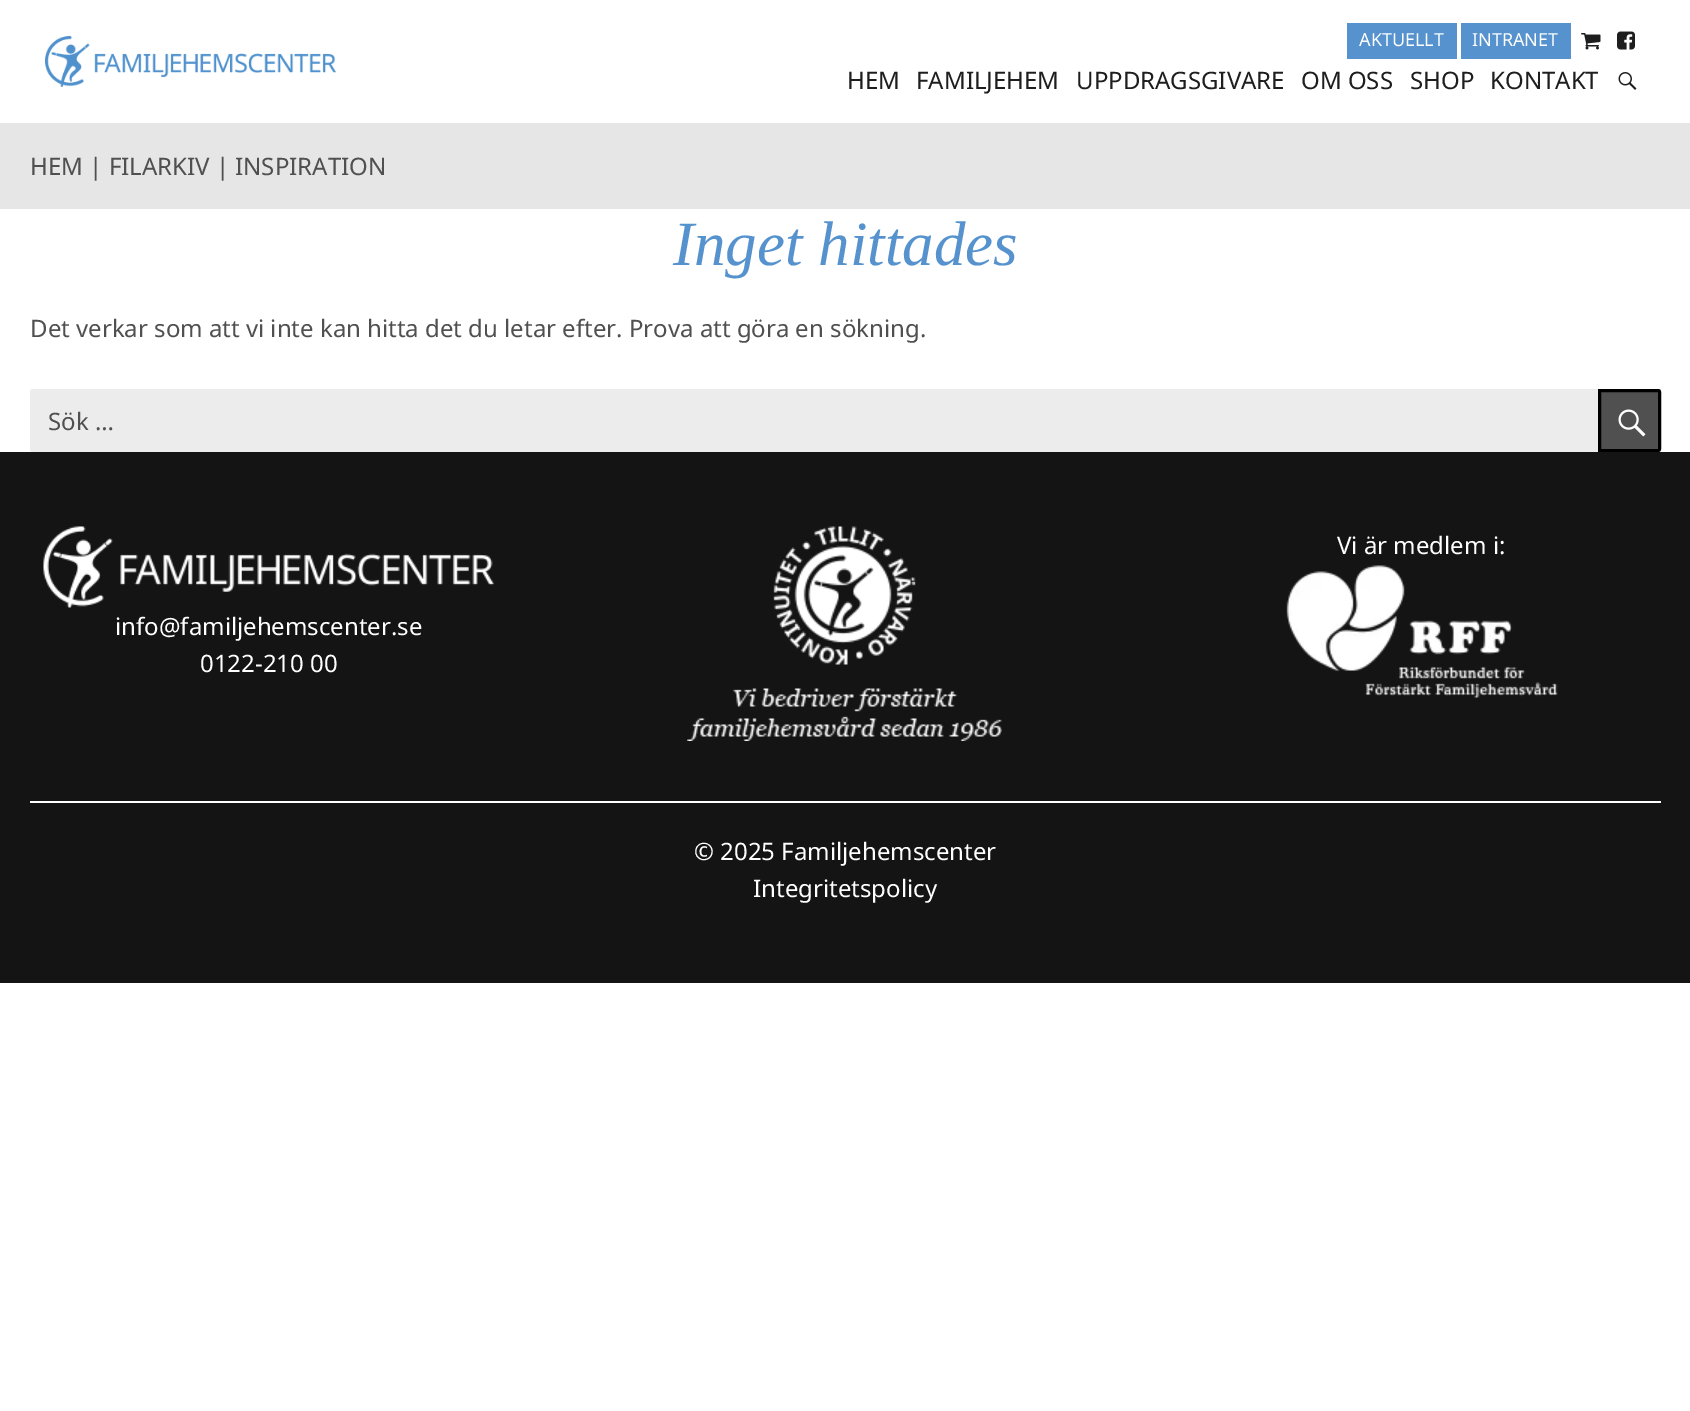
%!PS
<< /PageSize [1690 1411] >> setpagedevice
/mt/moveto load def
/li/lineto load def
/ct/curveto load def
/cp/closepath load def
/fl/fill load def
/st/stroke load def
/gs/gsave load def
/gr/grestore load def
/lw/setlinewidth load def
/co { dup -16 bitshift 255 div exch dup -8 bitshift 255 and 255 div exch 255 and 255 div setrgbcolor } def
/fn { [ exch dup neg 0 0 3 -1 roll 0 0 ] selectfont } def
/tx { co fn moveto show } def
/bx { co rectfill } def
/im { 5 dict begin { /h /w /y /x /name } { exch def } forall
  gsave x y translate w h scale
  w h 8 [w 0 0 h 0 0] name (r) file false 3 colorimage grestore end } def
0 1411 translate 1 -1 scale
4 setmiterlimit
0 0 1690 1411 16#FFFFFF bx
0 123 1690 86 16#E6E6E6 bx
(media/1.raw) 45 36 291 51 im
1347 23 110 36 16#5592CE bx
1461 23 110 36 16#5592CE bx
(media/2.raw) 1581 33 20 17 im
(media/3.raw) 1617 31 18 19 im
(media/4.raw) 1618 72 19 18 im
16#ECECEC co
33 389 mt 1598 389 li 1598 452 li 33 452 li 31.5 452 30 450.5 30 449 ct 30 392 li 30 390.5 31.5 389 33 389 ct cp fl
16#505050 co
1599.5 390.5 mt 1658 390.5 li 1659 390.5 1659.5 391 1659.5 392 ct 1659.5 449 li 1659.5 450 1659 450.5 1658 450.5 ct 1599.5 450.5 li cp gs fl gr
16#000000 co
3 lw
st
(media/5.raw) 1618 409 28 28 im
0 452 1690 531 16#141414 bx
(media/6.raw) 687 526 315 215 im
(media/7.raw) 1286 565 272 133 im
(media/8.raw) 43 526 451 82 im
30 801 1631 2 16#FFFFFF bx
(AKTUELLT) 1359 46 /NotoSans-Regular 18 16#FFFFFF tx
(INTRANET) 1472 46 /NotoSans-Regular 18 16#FFFFFF tx
(HEM) 847 89 /NotoSans-Regular 24 16#1E1E1E tx
(FAMILJEHEM) 916 89 /NotoSans-Regular 24 16#1E1E1E tx
(UPPDRAGSGIVARE) 1076 89 /NotoSans-Regular 24 16#1E1E1E tx
(OM OSS) 1301 89 /NotoSans-Regular 24 16#1E1E1E tx
(SHOP) 1410 89 /NotoSans-Regular 24 16#1E1E1E tx
(KONTAKT) 1490 89 /NotoSans-Regular 24 16#1E1E1E tx
(HEM | FILARKIV | INSPIRATION) 30 175 /NotoSans-Regular 24 16#505050 tx
(Inget hittades) 673 265 /LiberationSerif-Italic 63 16#5592CE tx
(Det verkar som att vi inte kan hitta det du letar efter. Prova att göra en sökning.) 30 337 /NotoSans-Regular 24 16#505050 tx
(Sök …) 48 430 /NotoSans-Regular 24 16#505050 tx
(Vi är medlem i:) 1337 554 /NotoSans-Regular 24 16#FFFFFF tx
(info@familjehemscenter.se) 115 635 /NotoSans-Regular 24 16#FFFFFF tx
(0122-210 00) 200 672 /NotoSans-Regular 24 16#FFFFFF tx
(© 2025 Familjehemscenter) 694 860 /NotoSans-Regular 24 16#FFFFFF tx
(Integritetspolicy) 753 897 /NotoSans-Regular 24 16#FFFFFF tx
showpage
